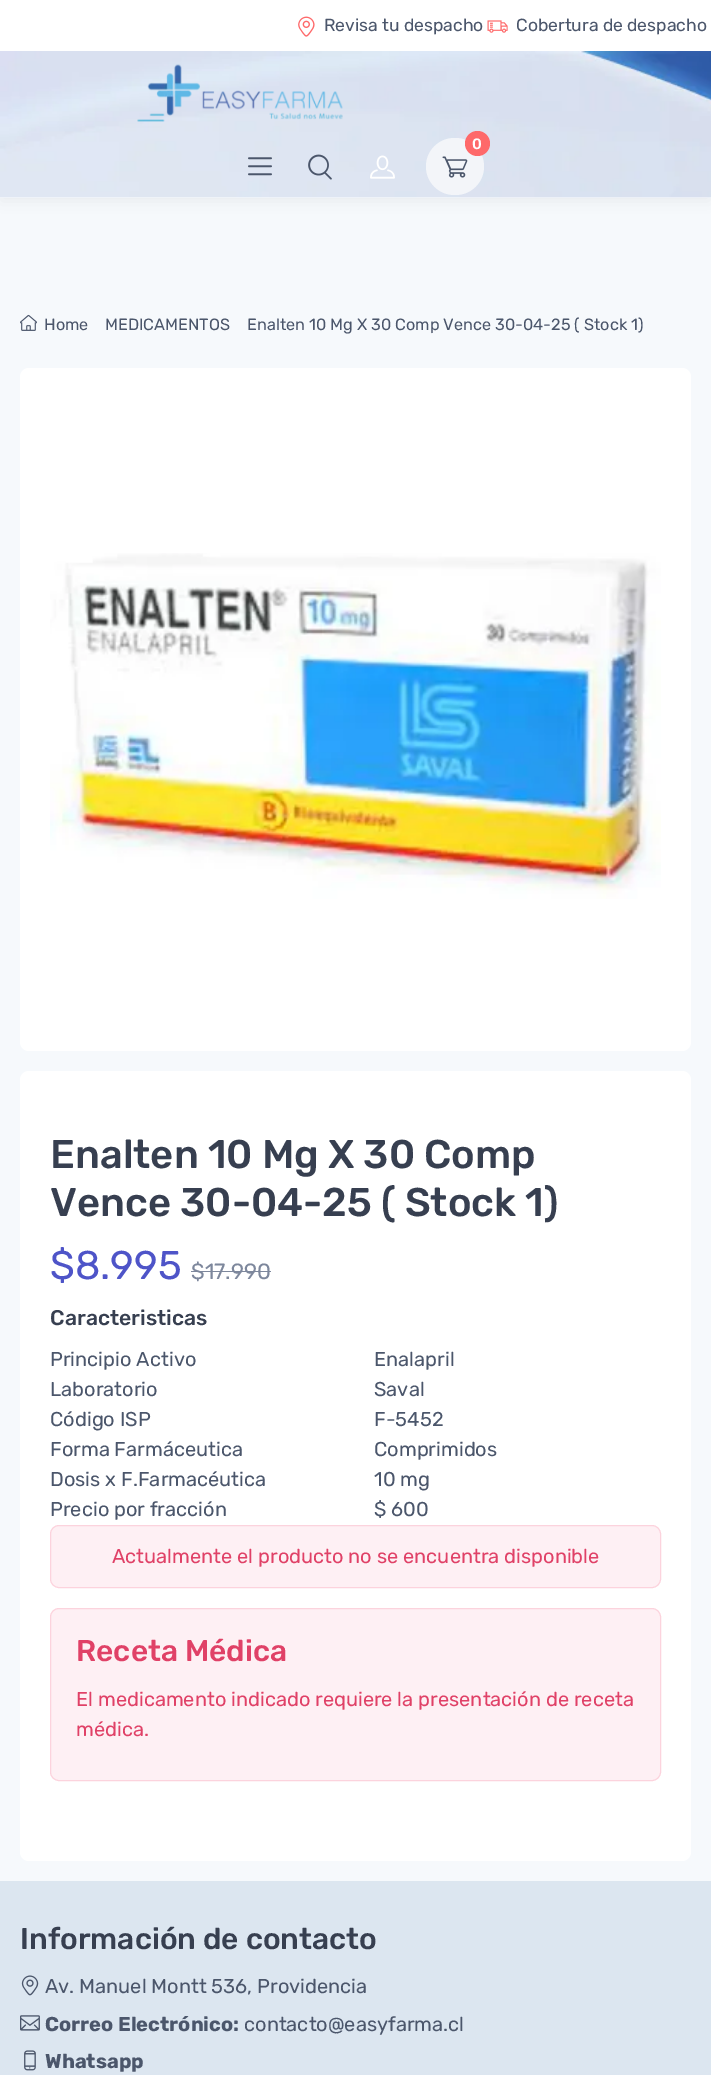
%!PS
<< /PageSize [711 2075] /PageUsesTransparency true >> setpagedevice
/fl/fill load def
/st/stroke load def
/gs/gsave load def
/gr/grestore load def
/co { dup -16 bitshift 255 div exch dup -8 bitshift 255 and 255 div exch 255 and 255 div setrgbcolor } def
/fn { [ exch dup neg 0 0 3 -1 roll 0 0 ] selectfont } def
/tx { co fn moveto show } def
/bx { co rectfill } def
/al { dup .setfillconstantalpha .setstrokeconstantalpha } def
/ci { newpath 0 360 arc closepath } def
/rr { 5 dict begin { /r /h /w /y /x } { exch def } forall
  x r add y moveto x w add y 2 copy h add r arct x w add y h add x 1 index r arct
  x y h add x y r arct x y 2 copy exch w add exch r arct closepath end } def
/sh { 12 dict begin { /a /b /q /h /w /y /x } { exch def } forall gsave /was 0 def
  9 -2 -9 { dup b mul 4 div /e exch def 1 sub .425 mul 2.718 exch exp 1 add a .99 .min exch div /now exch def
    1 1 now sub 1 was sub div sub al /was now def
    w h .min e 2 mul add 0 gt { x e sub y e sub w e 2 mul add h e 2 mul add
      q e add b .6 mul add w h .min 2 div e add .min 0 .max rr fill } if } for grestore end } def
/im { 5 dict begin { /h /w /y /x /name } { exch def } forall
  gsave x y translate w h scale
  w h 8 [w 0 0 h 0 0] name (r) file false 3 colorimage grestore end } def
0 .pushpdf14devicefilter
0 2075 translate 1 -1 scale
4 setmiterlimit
0 0 711 2075 16#F6F9FC bx
16#000000 co
1 6 709 195 0 7.5 .06 sh
0 0 711 198 16#FFFFFF bx
(media/1.raw) 298 16 17 21 im
(media/2.raw) 487 20 21 13 im
(media/3.raw) 0 51 711 147 im
(media/4.raw) 137 64 206 58 im
16#F3F5F9 co
426 138 58 57 28.5 rr fl
16#FE696A co
477.5 143.5 12.5 ci fl
(media/5.raw) 442 156 26 22 im
(media/6.raw) 248 157 24 19 im
(media/7.raw) 308 154 24 26 im
(media/8.raw) 370 155 25 24 im
(media/9.raw) 20 314 17 17 im
16#FFFFFF co
20 368 671 683 9 rr fl
(media/10.raw) 50 553 611 346 im
20 1071 671 790 9 rr fl
191 1271 80 1 16#7D879C bx
16#FEF0F4 co
50.5 1525.5 610 62 8.5 rr gs fl gr
16#FCD3DD co
st
16#FEF0F4 co
50.5 1608.5 610 172 8.5 rr gs fl gr
16#FCD3DD co
st
0 1881 711 194 16#DCE6F0 bx
(media/11.raw) 21 1975 18 21 im
(media/12.raw) 20 2015 20 16 im
(media/13.raw) 24 2050 12 21 im
(Revisa tu despacho) 324 31 /Rubik-Regular 17.5 16#4B566B tx
(Cobertura de despacho) 516 31 /Rubik-Regular 17.5 16#4B566B tx
(0) 472 149 /Rubik-Medium 15 16#FFFFFF tx
(Home) 44 330 /Rubik-Regular 16.25 16#4B566B tx
(MEDICAMENTOS) 105 330 /Rubik-Regular 16.25 16#4B566B tx
(Enalten 10 Mg X 30 Comp Vence 30-04-25 \( Stock 1\)) 247 330 /Rubik-Regular 16.25 16#4B566B tx
(Enalten 10 Mg X 30 Comp) 50 1168 /Rubik-Medium 40 16#373F50 tx
(Vence 30-04-25 \( Stock 1\)) 50 1216 /Rubik-Medium 40 16#373F50 tx
($8.995) 50 1279 /Rubik-Regular 40 16#4E54C8 tx
($17.990) 191 1279 /Rubik-Regular 22 16#7D879C tx
(Caracteristicas) 50 1325 /Rubik-Medium 21.25 16#373F50 tx
(Principio Activo) 50 1366 /Rubik-Regular 20 16#4B566B tx
(Enalapril) 374 1366 /Rubik-Regular 20 16#4B566B tx
(Laboratorio) 50 1396 /Rubik-Regular 20 16#4B566B tx
(Saval) 374 1396 /Rubik-Regular 20 16#4B566B tx
(Código ISP) 50 1426 /Rubik-Regular 20 16#4B566B tx
(F-5452) 374 1426 /Rubik-Regular 20 16#4B566B tx
(Forma Farmáceutica) 50 1456 /Rubik-Regular 20 16#4B566B tx
(Comprimidos) 374 1456 /Rubik-Regular 20 16#4B566B tx
(Dosis x F.Farmacéutica) 50 1486 /Rubik-Regular 20 16#4B566B tx
(10 mg) 374 1486 /Rubik-Regular 20 16#4B566B tx
(Precio por fracción) 50 1516 /Rubik-Regular 20 16#4B566B tx
($ 600) 374 1516 /Rubik-Regular 20 16#4B566B tx
(Actualmente el producto no se encuentra disponible) 112 1563 /Rubik-Regular 20 16#E04167 tx
(Receta Médica) 76 1661 /Rubik-Medium 30 16#E04167 tx
(El medicamento indicado requiere la presentación de receta) 76 1706 /Rubik-Regular 20 16#E04167 tx
(médica.) 76 1736 /Rubik-Regular 20 16#E04167 tx
(Información de contacto) 20 1949 /Rubik-Medium 30 16#373F50 tx
(Av. Manuel Montt 536, Providencia) 45 1993 /Rubik-Regular 20 16#4B566B tx
(Correo Electrónico:) 45 2031 /Rubik-Bold 20 16#4B566B tx
(contacto@easyfarma.cl) 244 2031 /Rubik-Regular 20 16#4B566B tx
(Whatsapp) 45 2068 /Rubik-Bold 20 16#4B566B tx
.poppdf14devicefilter showpage
